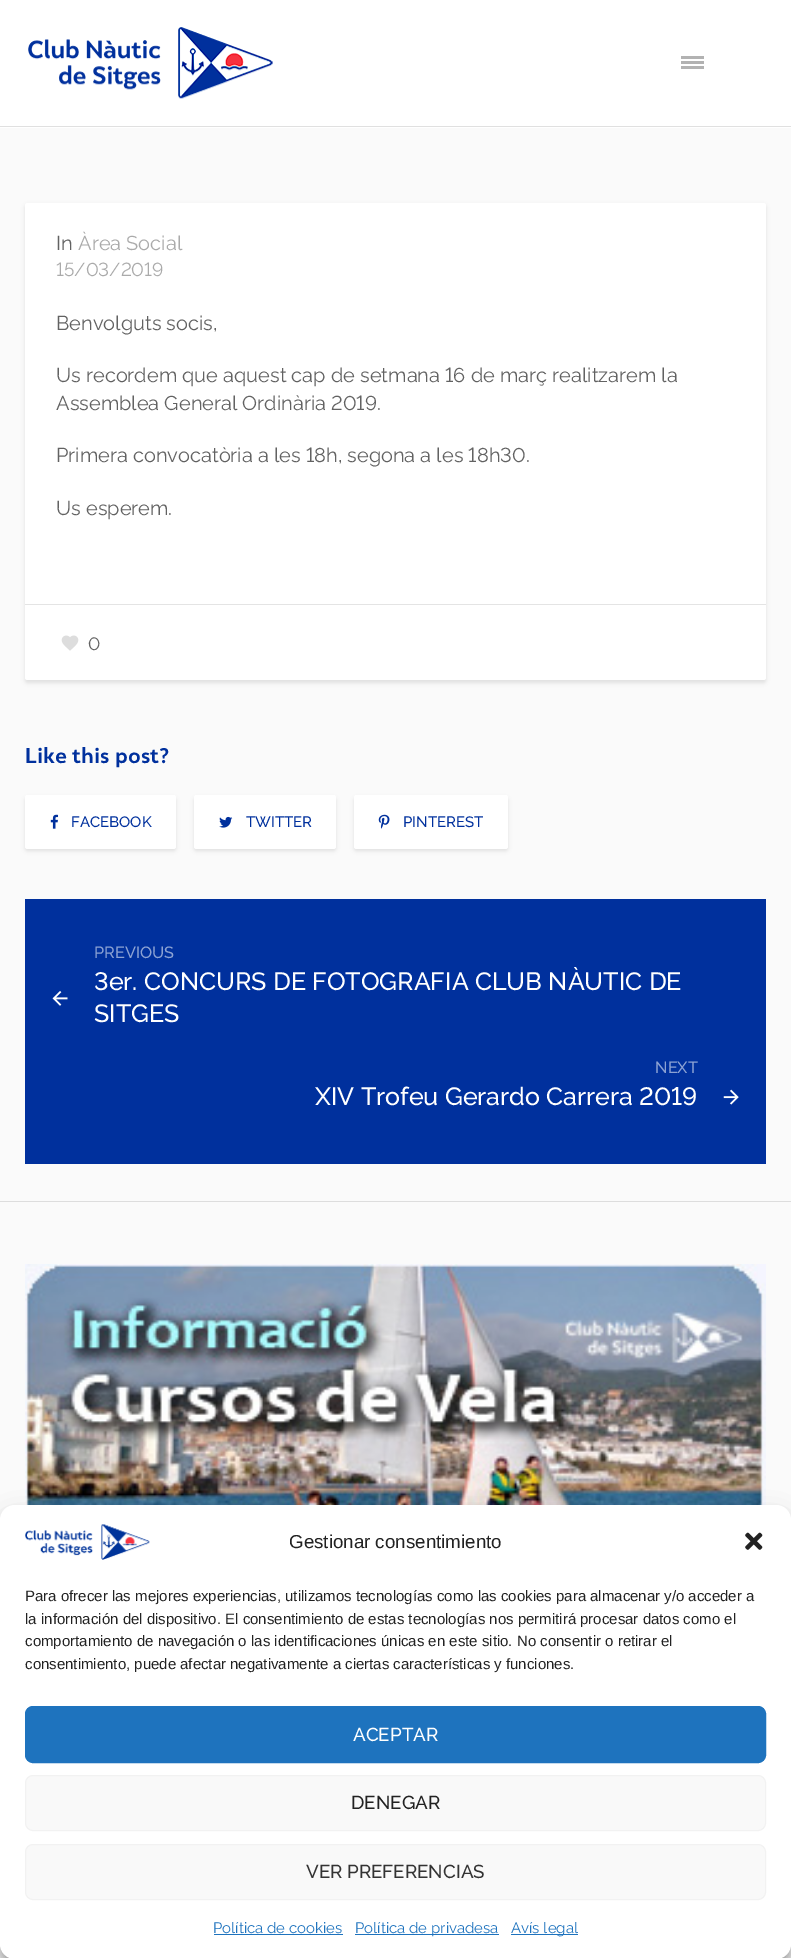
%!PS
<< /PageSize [791 1958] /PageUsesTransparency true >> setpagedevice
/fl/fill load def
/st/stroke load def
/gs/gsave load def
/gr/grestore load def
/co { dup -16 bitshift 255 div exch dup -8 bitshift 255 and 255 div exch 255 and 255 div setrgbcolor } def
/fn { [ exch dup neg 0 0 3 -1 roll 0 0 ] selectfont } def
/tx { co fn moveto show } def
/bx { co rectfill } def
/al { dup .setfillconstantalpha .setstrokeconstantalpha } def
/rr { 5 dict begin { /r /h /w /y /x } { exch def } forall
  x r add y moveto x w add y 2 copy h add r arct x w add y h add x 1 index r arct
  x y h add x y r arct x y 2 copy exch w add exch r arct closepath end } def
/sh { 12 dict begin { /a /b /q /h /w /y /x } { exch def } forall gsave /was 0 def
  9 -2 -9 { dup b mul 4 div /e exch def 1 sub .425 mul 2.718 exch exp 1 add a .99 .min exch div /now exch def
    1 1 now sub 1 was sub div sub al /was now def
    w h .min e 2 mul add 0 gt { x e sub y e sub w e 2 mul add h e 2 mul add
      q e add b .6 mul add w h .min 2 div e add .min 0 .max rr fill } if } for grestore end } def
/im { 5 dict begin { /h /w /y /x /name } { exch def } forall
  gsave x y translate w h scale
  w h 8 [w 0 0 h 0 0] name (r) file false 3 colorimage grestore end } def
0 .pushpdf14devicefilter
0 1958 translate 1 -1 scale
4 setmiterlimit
0 0 791 1958 16#FAFAFA bx
0 0 791 128 16#FFFFFF bx
0 126 791 1 16#E0E0E0 bx
(media/1.raw) 28 27 245 72 im
681 61 23 3 16#B2B2B2 bx
681 56 23 3 16#B2B2B2 bx
681 66 23 3 16#B2B2B2 bx
16#000000 co
25 205 741 478 2.5 2 .1 sh
16#FFFFFF co
25 203 741 477 2.5 rr fl
25 604 741 1 16#E4E4E4 bx
(media/2.raw) 61 635 18 16 im
16#000000 co
25 798 151 53 2.5 2 .1 sh
16#FFFFFF co
25 795 151 54 2.5 rr fl
(media/3.raw) 50 814 9 15 im
16#000000 co
194 798 142 53 2.5 2 .1 sh
16#FFFFFF co
194 795 142 54 2.5 rr fl
(media/4.raw) 219 816 14 12 im
16#000000 co
354 798 154 53 2.5 2 .1 sh
16#FFFFFF co
354 795 154 54 2.5 rr fl
(media/5.raw) 378 814 12 15 im
25 899 741 265 16#00309D bx
(media/6.raw) 52 991 16 15 im
(media/7.raw) 723 1089 16 16 im
0 1201 791 1 16#DDDDDD bx
(media/8.raw) 25 1264 741 241 im
16#000000 co
0 1513 791 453 15 4 .23 sh
0 1518 791 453 15 12.5 .19 sh
16#FFFFFF co
0 1505 791 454 15 rr fl
(media/9.raw) 25 1524 125 36 im
(media/10.raw) 745 1532 18 18 im
16#1E73BE co
25.5 1706.5 740 56 7.5 rr gs fl gr
st
16#F9F9F9 co
25.5 1775.5 740 55 7.5 rr gs fl gr
16#F2F2F2 co
st
16#F9F9F9 co
25.5 1844.5 740 55 7.5 rr gs fl gr
16#F2F2F2 co
st
214 1934 129 1 16#1E73BE bx
355 1934 144 1 16#1E73BE bx
511 1934 67 1 16#1E73BE bx
(In) 56 250 /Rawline-Regular 20 16#626262 tx
(Àrea Social) 78 250 /Rawline-Regular 20 16#AAAAAA tx
(15/03/2019) 56 276 /Rawline-Regular 18.75 16#AAAAAA tx
(Benvolguts socis,) 56 330 /Rawline-Regular 20 16#626262 tx
(Us recordem que aquest cap de setmana 16 de març realitzarem la) 56 382 /Rawline-Regular 20 16#626262 tx
(Assemblea General Ordinària 2019.) 56 410 /Rawline-Regular 20 16#626262 tx
(Primera convocatòria a les 18h, segona a les 18h30.) 56 462 /Rawline-Regular 20 16#626262 tx
(Us esperem.) 56 515 /Rawline-Regular 20 16#626262 tx
(0) 88 650 /Rawline-Regular 18 16#626262 tx
(Like this post?) 25 763 /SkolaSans-Bold 20 16#00309D tx
(FACEBOOK) 71 827 /Rawline-Medium 15 16#00309D tx
(TWITTER) 246 827 /Rawline-Medium 15 16#00309D tx
(PINTEREST) 403 827 /Rawline-Medium 15 16#00309D tx
(PREVIOUS) 94 958 /Raleway-Medium 16.25 16#8CA2D3 tx
(3er. CONCURS DE FOTOGRAFIA CLUB NÀUTIC DE) 94 990 /Rawline-Medium 25 16#FFFFFF tx
(SITGES) 94 1022 /Rawline-Medium 25 16#FFFFFF tx
(NEXT) 655 1073 /Raleway-Medium 16.25 16#8CA2D3 tx
(XIV Trofeu Gerardo Carrera 2019) 315 1105 /Rawline-Medium 25 16#FFFFFF tx
(Gestionar consentimiento) 289 1548 /LiberationSans-Regular 18.75 16#222222 tx
(Para ofrecer las mejores experiencias, utilizamos tecnologías como las cookies para almacenar y/o acceder a) 25 1601 /LiberationSans-Regular 15 16#222222 tx
(la información del dispositivo. El consentimiento de estas tecnologías nos permitirá procesar datos como el) 25 1624 /LiberationSans-Regular 15 16#222222 tx
(comportamiento de navegación o las identificaciones únicas en este sitio. No consentir o retirar el) 25 1646 /LiberationSans-Regular 15 16#222222 tx
(consentimiento, puede afectar negativamente a ciertas características y funciones.) 25 1669 /LiberationSans-Regular 15 16#222222 tx
(ACEPTAR) 353 1741 /Raleway-Medium 18.75 16#FFFFFF tx
(DENEGAR) 351 1809 /Raleway-Medium 18.75 16#222222 tx
(VER PREFERENCIAS) 306 1878 /Raleway-Medium 18.75 16#333333 tx
(Política de cookies) 213 1933 /Rawline-Regular 15 16#1E73BE tx
(Política de privadesa) 355 1933 /Rawline-Regular 15 16#1E73BE tx
(Avís legal) 511 1933 /Rawline-Regular 15 16#1E73BE tx
.poppdf14devicefilter showpage
